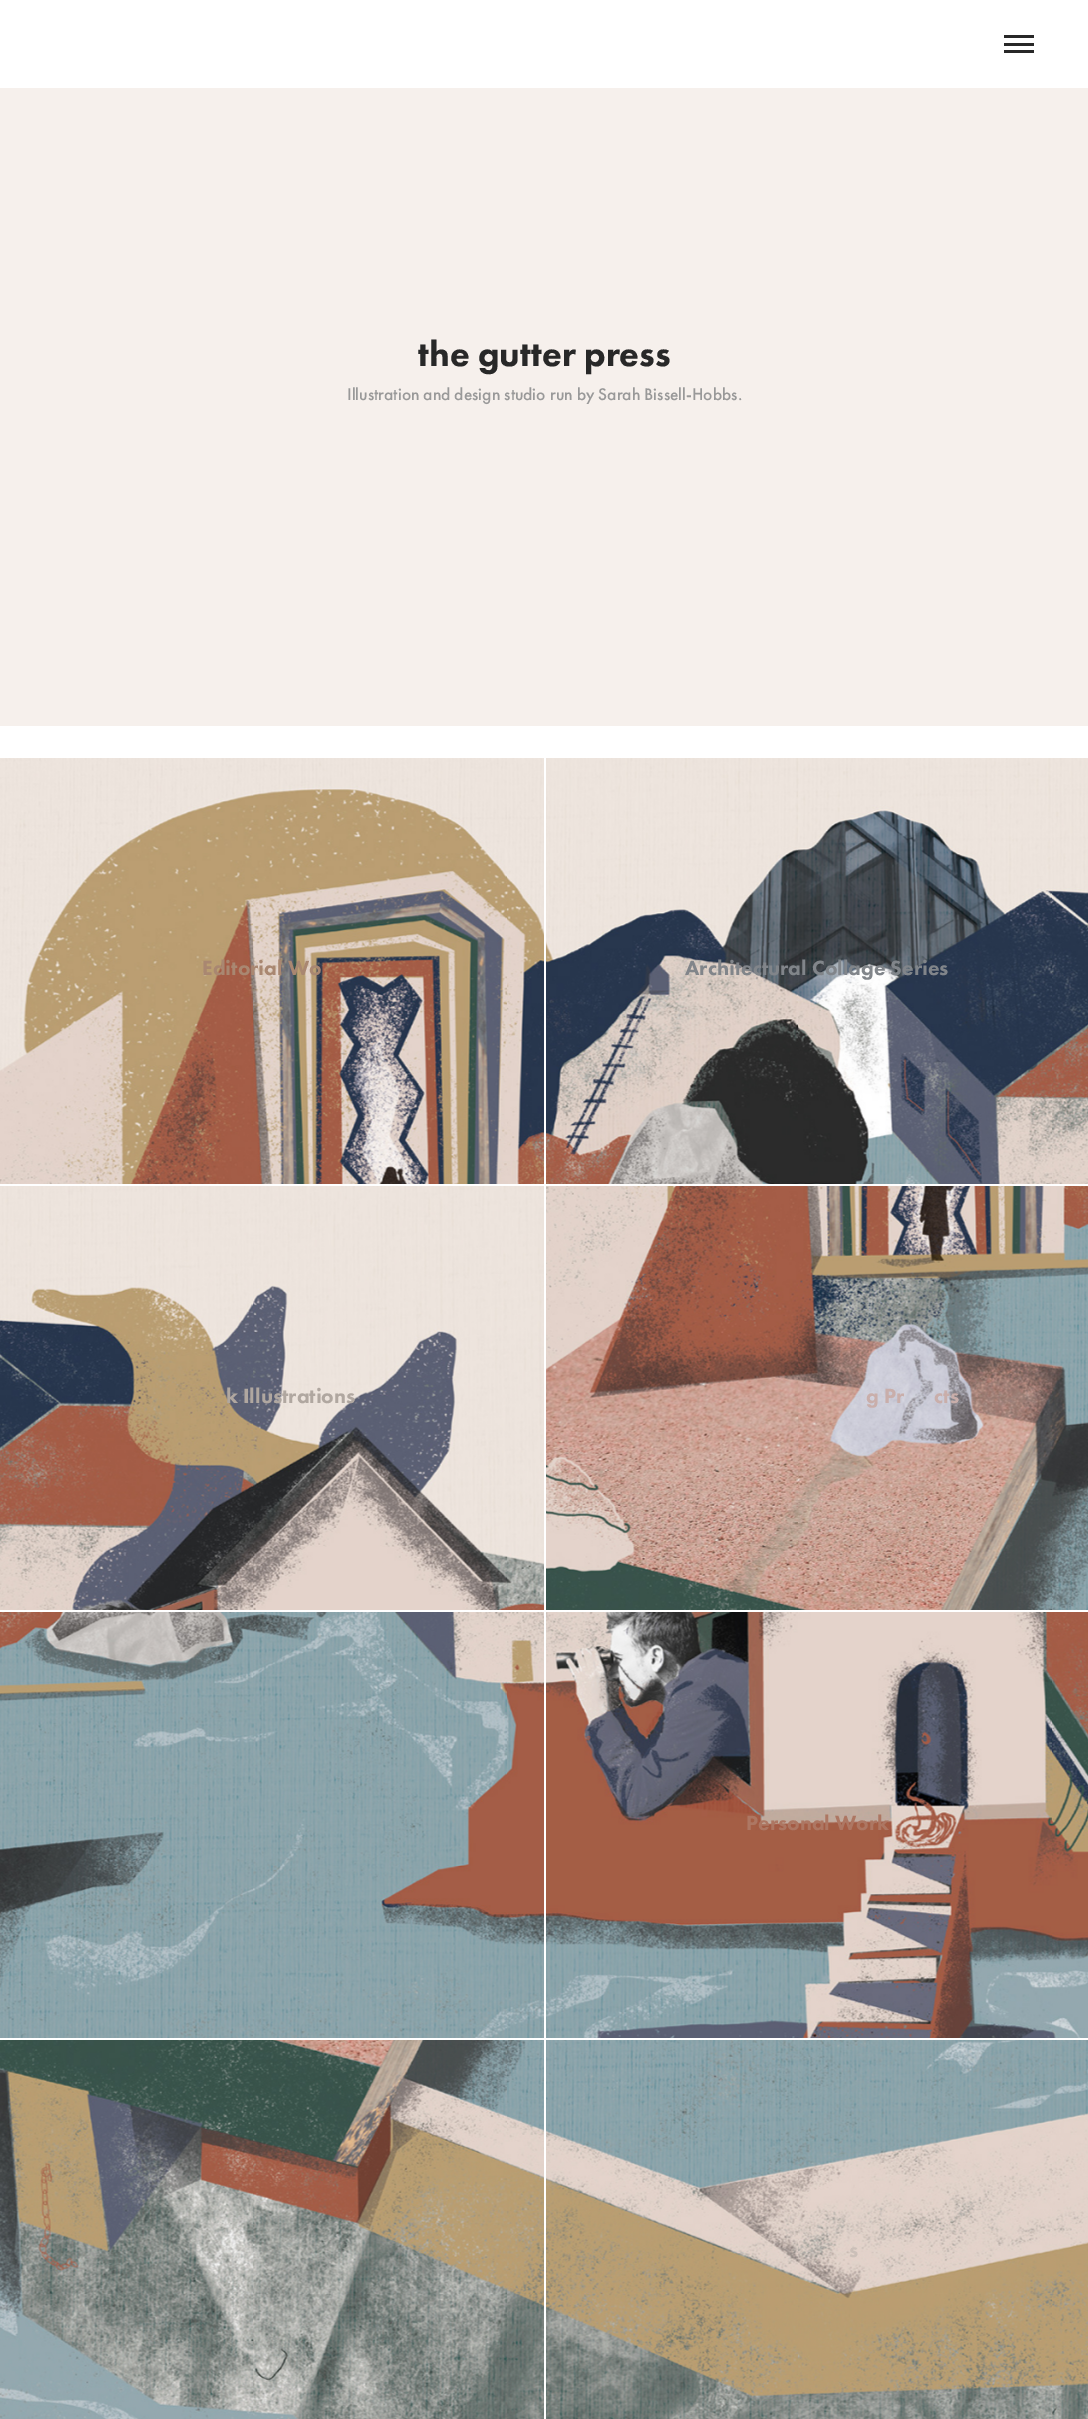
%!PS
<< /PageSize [1088 2419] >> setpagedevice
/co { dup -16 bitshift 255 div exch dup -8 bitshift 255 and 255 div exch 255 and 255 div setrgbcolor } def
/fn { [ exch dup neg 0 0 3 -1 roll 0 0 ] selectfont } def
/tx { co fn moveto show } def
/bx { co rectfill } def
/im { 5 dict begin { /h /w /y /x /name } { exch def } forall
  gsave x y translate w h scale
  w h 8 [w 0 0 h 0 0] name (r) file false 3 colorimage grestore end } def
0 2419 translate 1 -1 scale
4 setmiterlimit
0 0 1088 2419 16#FFFFFF bx
1004 35 30 3 16#282828 bx
1004 43 30 3 16#282828 bx
1004 50 30 3 16#282828 bx
0 88 1088 638 16#F6F0EC bx
(media/1.raw) 0 758 544 426 im
(media/2.raw) 546 758 542 426 im
(media/3.raw) 0 1186 544 424 im
(media/4.raw) 546 1186 542 424 im
(media/5.raw) 0 1612 544 426 im
(media/6.raw) 546 1612 542 426 im
(media/7.raw) 0 2040 544 379 im
(media/8.raw) 546 2040 542 379 im
(the gutter press) 418 366 /FuturaPT-Black 36.25 16#282828 tx
(Illustration and design studio run by Sarah Bissell-Hobbs.) 347 400 /FuturaPT-Medium 17.5 16#999999 tx
(Editorial Wo) 202 975 /FuturaPT-Black 21.25 16#A98771 tx
(Architectural Collage Series) 685 975 /FuturaPT-Black 21.25 16#81858A tx
(k Illustrations) 226 1403 /FuturaPT-Black 21.25 16#B0A7A0 tx
(g Pr) 866 1403 /FuturaPT-Black 21.25 16#C9AEAA tx
(cts) 934 1403 /FuturaPT-Black 21.25 16#C9AEAA tx
(Personal Work) 746 1830 /FuturaPT-Black 21.25 16#AD7763 tx
(s) 849 2257 /FuturaPT-Black 21.25 16#CBBFB8 tx
showpage
